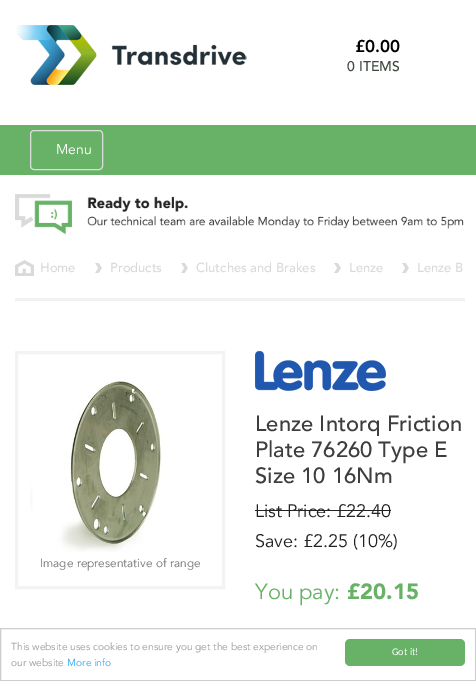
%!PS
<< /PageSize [476 681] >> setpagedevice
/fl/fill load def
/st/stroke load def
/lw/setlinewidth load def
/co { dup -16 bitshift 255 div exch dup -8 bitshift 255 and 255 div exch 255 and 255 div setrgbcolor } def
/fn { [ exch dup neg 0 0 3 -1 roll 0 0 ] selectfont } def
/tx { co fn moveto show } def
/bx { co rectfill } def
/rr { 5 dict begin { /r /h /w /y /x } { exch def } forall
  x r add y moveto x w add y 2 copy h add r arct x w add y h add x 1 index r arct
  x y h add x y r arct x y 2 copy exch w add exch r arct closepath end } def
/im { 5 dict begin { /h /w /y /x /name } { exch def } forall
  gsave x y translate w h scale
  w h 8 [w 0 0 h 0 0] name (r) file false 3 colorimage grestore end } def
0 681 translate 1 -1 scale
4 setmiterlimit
0 0 476 681 16#FFFFFF bx
(media/1.raw) 15 25 232 60 im
0 125 476 50 16#68B268 bx
16#DDDDDD co
30.5 130.5 72 39 3.5 rr st
(media/2.raw) 15 194 449 41 im
(media/3.raw) 15 260 19 16 im
(media/4.raw) 95 263 7 10 im
(media/4.raw) 181 263 7 10 im
(media/4.raw) 334 263 7 10 im
(media/4.raw) 402 263 7 10 im
15 298 450 3 16#F1F1F1 bx
16#F3F3F3 co
3 lw
16.5 352.5 207 235 rectstroke
(media/5.raw) 30 380 133 172 im
(media/6.raw) 255 351 131 40 im
255 510 136 1 16#232323 bx
16#CCCCCC co
1 lw
.5 628.5 475 52 rectstroke
16#68B268 co
345 639 120 27 5 rr fl
(£0.00) 355 52 /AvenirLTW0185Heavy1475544-Black 17 16#000000 tx
(0 ITEMS) 347 71 /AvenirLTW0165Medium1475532-Medium 14 16#40483F tx
(Menu) 56 154 /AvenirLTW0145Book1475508-Regular 14 16#FFFFFF tx
(Home) 40 272 /AvenirLTW0165Medium1475532-Medium 13 16#DADADA tx
(Products) 110 272 /AvenirLTW0165Medium1475532-Medium 13 16#DADADA tx
(Clutches and Brakes) 196 272 /AvenirLTW0165Medium1475532-Medium 13 16#DADADA tx
(Lenze) 349 272 /AvenirLTW0165Medium1475532-Medium 13 16#DADADA tx
(Lenze B) 417 272 /AvenirLTW0165Medium1475532-Medium 13 16#DADADA tx
(Image representative of range) 40 567 /AvenirLTW0145Book1475508-Regular 11.9 16#777777 tx
(Lenze Intorq Friction) 255 431 /AvenirLTW0165Medium1475532-Medium 22 16#3E3E40 tx
(Plate 76260 Type E) 255 457 /AvenirLTW0165Medium1475532-Medium 22 16#3E3E40 tx
(Size 10 16Nm) 255 483 /AvenirLTW0165Medium1475532-Medium 22 16#3E3E40 tx
(List Price: £22.40) 255 517 /AvenirLTW0145Book1475508-Regular 18 16#232323 tx
(Save: £2.25 \(10%\)) 255 547 /AvenirLTW0145Book1475508-Regular 18 16#232323 tx
(You pay:) 255 599 /AvenirLTW0145Book1475508-Regular 22 16#68B268 tx
(£20.15) 347 599 /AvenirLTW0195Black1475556-Black 22 16#68B268 tx
(This website uses cookies to ensure you get the best experience on) 11 650 /AvenirLTW0145Book1475508-Regular 10.2 16#999999 tx
(our website) 11 666 /AvenirLTW0145Book1475508-Regular 10.2 16#999999 tx
(More info) 67 666 /AvenirLTW0145Book1475508-Regular 10.2 16#31A8F0 tx
(Got it!) 392 655 /Carlito-Regular 10.2 16#FFFFFF tx
showpage
